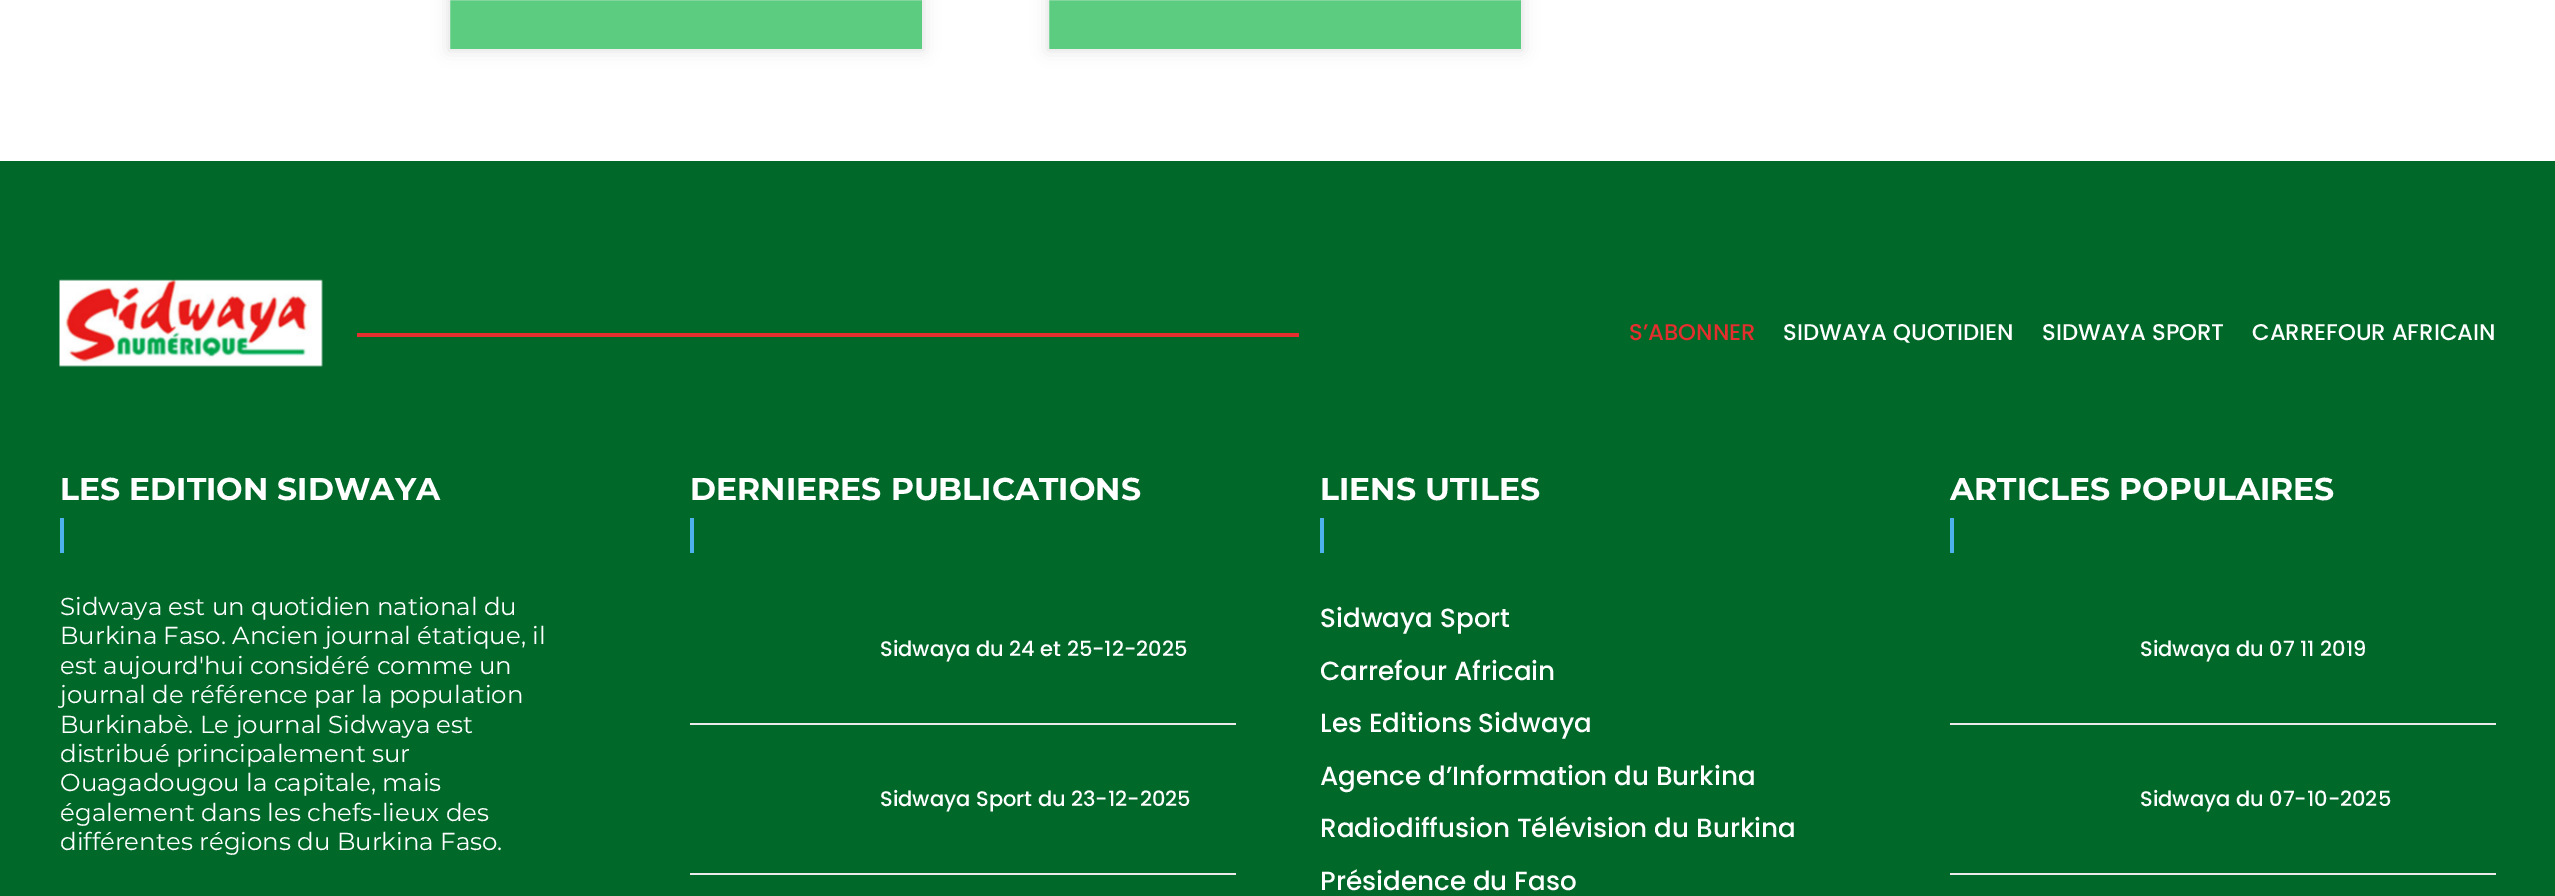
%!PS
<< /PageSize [2555 896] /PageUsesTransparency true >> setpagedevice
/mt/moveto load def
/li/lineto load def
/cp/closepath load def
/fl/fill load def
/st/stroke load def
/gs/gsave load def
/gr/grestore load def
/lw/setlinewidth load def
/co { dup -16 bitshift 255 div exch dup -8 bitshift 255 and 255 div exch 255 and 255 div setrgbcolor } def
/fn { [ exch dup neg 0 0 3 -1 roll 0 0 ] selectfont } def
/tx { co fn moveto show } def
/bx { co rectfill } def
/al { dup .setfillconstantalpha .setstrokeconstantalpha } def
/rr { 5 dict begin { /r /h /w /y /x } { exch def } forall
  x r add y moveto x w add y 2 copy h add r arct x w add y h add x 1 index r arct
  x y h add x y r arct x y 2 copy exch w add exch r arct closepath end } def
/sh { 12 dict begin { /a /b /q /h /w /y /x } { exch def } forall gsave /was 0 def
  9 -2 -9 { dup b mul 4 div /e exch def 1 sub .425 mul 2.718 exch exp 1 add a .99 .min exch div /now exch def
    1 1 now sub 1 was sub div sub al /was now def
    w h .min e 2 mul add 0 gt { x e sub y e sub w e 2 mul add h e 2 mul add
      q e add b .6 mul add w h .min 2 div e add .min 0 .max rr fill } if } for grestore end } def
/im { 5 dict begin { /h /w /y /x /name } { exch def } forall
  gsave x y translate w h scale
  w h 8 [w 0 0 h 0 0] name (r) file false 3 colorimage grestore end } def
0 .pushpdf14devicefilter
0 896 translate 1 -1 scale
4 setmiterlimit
0 0 2555 896 16#FFFFFF bx
16#000000 co
448 -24 476 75 0 8 .1 sh
16#5BCC80 co
449 -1 mt 923 -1 li 923 50 li 449 50 li cp gs fl gr
16#EEEEEE co
2 lw
st
16#000000 co
1047 -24 476 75 0 8 .1 sh
16#5BCC80 co
1048 -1 mt 1522 -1 li 1522 50 li 1048 50 li cp gs fl gr
16#EEEEEE co
st
0 161 2555 735 16#006829 bx
(media/1.raw) 59 279 264 88 im
357 333 942 4 16#E52E2E bx
60 518 4 35 16#4DB2EC bx
690 518 4 35 16#4DB2EC bx
690 723 546 2 16#EAEAEA bx
690 873 546 2 16#EAEAEA bx
1320 518 4 35 16#4DB2EC bx
1950 518 4 35 16#4DB2EC bx
1950 723 546 2 16#EAEAEA bx
1950 873 546 2 16#EAEAEA bx
(S’ABONNER) 1629 340 /Poppins-Medium 22.75 16#E52E2E tx
(SIDWAYA QUOTIDIEN) 1783 340 /Poppins-Medium 22.75 16#FFFFFF tx
(SIDWAYA SPORT) 2042 340 /Poppins-Medium 22.75 16#FFFFFF tx
(CARREFOUR AFRICAIN) 2252 340 /Poppins-Medium 22.75 16#FFFFFF tx
(LES EDITION SIDWAYA) 60 500 /Montserrat-Bold 31.5 16#FFFFFF tx
(Sidwaya est un quotidien national du) 60 615 /Montserrat-Regular 24.5 16#FFFFFF tx
(Burkina Faso. Ancien journal étatique, il) 60 644 /Montserrat-Regular 24.5 16#FFFFFF tx
(est aujourd'hui considéré comme un) 60 674 /Montserrat-Regular 24.5 16#FFFFFF tx
(journal de référence par la population) 60 703 /Montserrat-Regular 24.5 16#FFFFFF tx
(Burkinabè. Le journal Sidwaya est) 60 733 /Montserrat-Regular 24.5 16#FFFFFF tx
(distribué principalement sur) 60 762 /Montserrat-Regular 24.5 16#FFFFFF tx
(Ouagadougou la capitale, mais) 60 791 /Montserrat-Regular 24.5 16#FFFFFF tx
(également dans les chefs-lieux des) 60 821 /Montserrat-Regular 24.5 16#FFFFFF tx
(différentes régions du Burkina Faso.) 60 850 /Montserrat-Regular 24.5 16#FFFFFF tx
(DERNIERES PUBLICATIONS) 690 500 /Montserrat-Bold 31.5 16#FFFFFF tx
(Sidwaya du 24 et 25-12-2025) 880 656 /Poppins-Medium 21 16#FFFFFF tx
(Sidwaya Sport du 23-12-2025) 880 806 /Poppins-Medium 21 16#FFFFFF tx
(LIENS UTILES) 1320 500 /Montserrat-Bold 31.5 16#FFFFFF tx
(Sidwaya Sport) 1320 627 /Poppins-Medium 26.25 16#FFFFFF tx
(Carrefour Africain) 1320 680 /Poppins-Medium 26.25 16#FFFFFF tx
(Les Editions Sidwaya) 1320 732 /Poppins-Medium 26.25 16#FFFFFF tx
(Agence d’Information du Burkina) 1320 785 /Poppins-Medium 26.25 16#FFFFFF tx
(Radiodiffusion Télévision du Burkina) 1320 837 /Poppins-Medium 26.25 16#FFFFFF tx
(Présidence du Faso) 1320 890 /Poppins-Medium 26.25 16#FFFFFF tx
(ARTICLES POPULAIRES) 1950 500 /Montserrat-Bold 31.5 16#FFFFFF tx
(Sidwaya du 07 11 2019) 2140 656 /Poppins-Medium 21 16#FFFFFF tx
(Sidwaya du 07-10-2025) 2140 806 /Poppins-Medium 21 16#FFFFFF tx
.poppdf14devicefilter showpage
